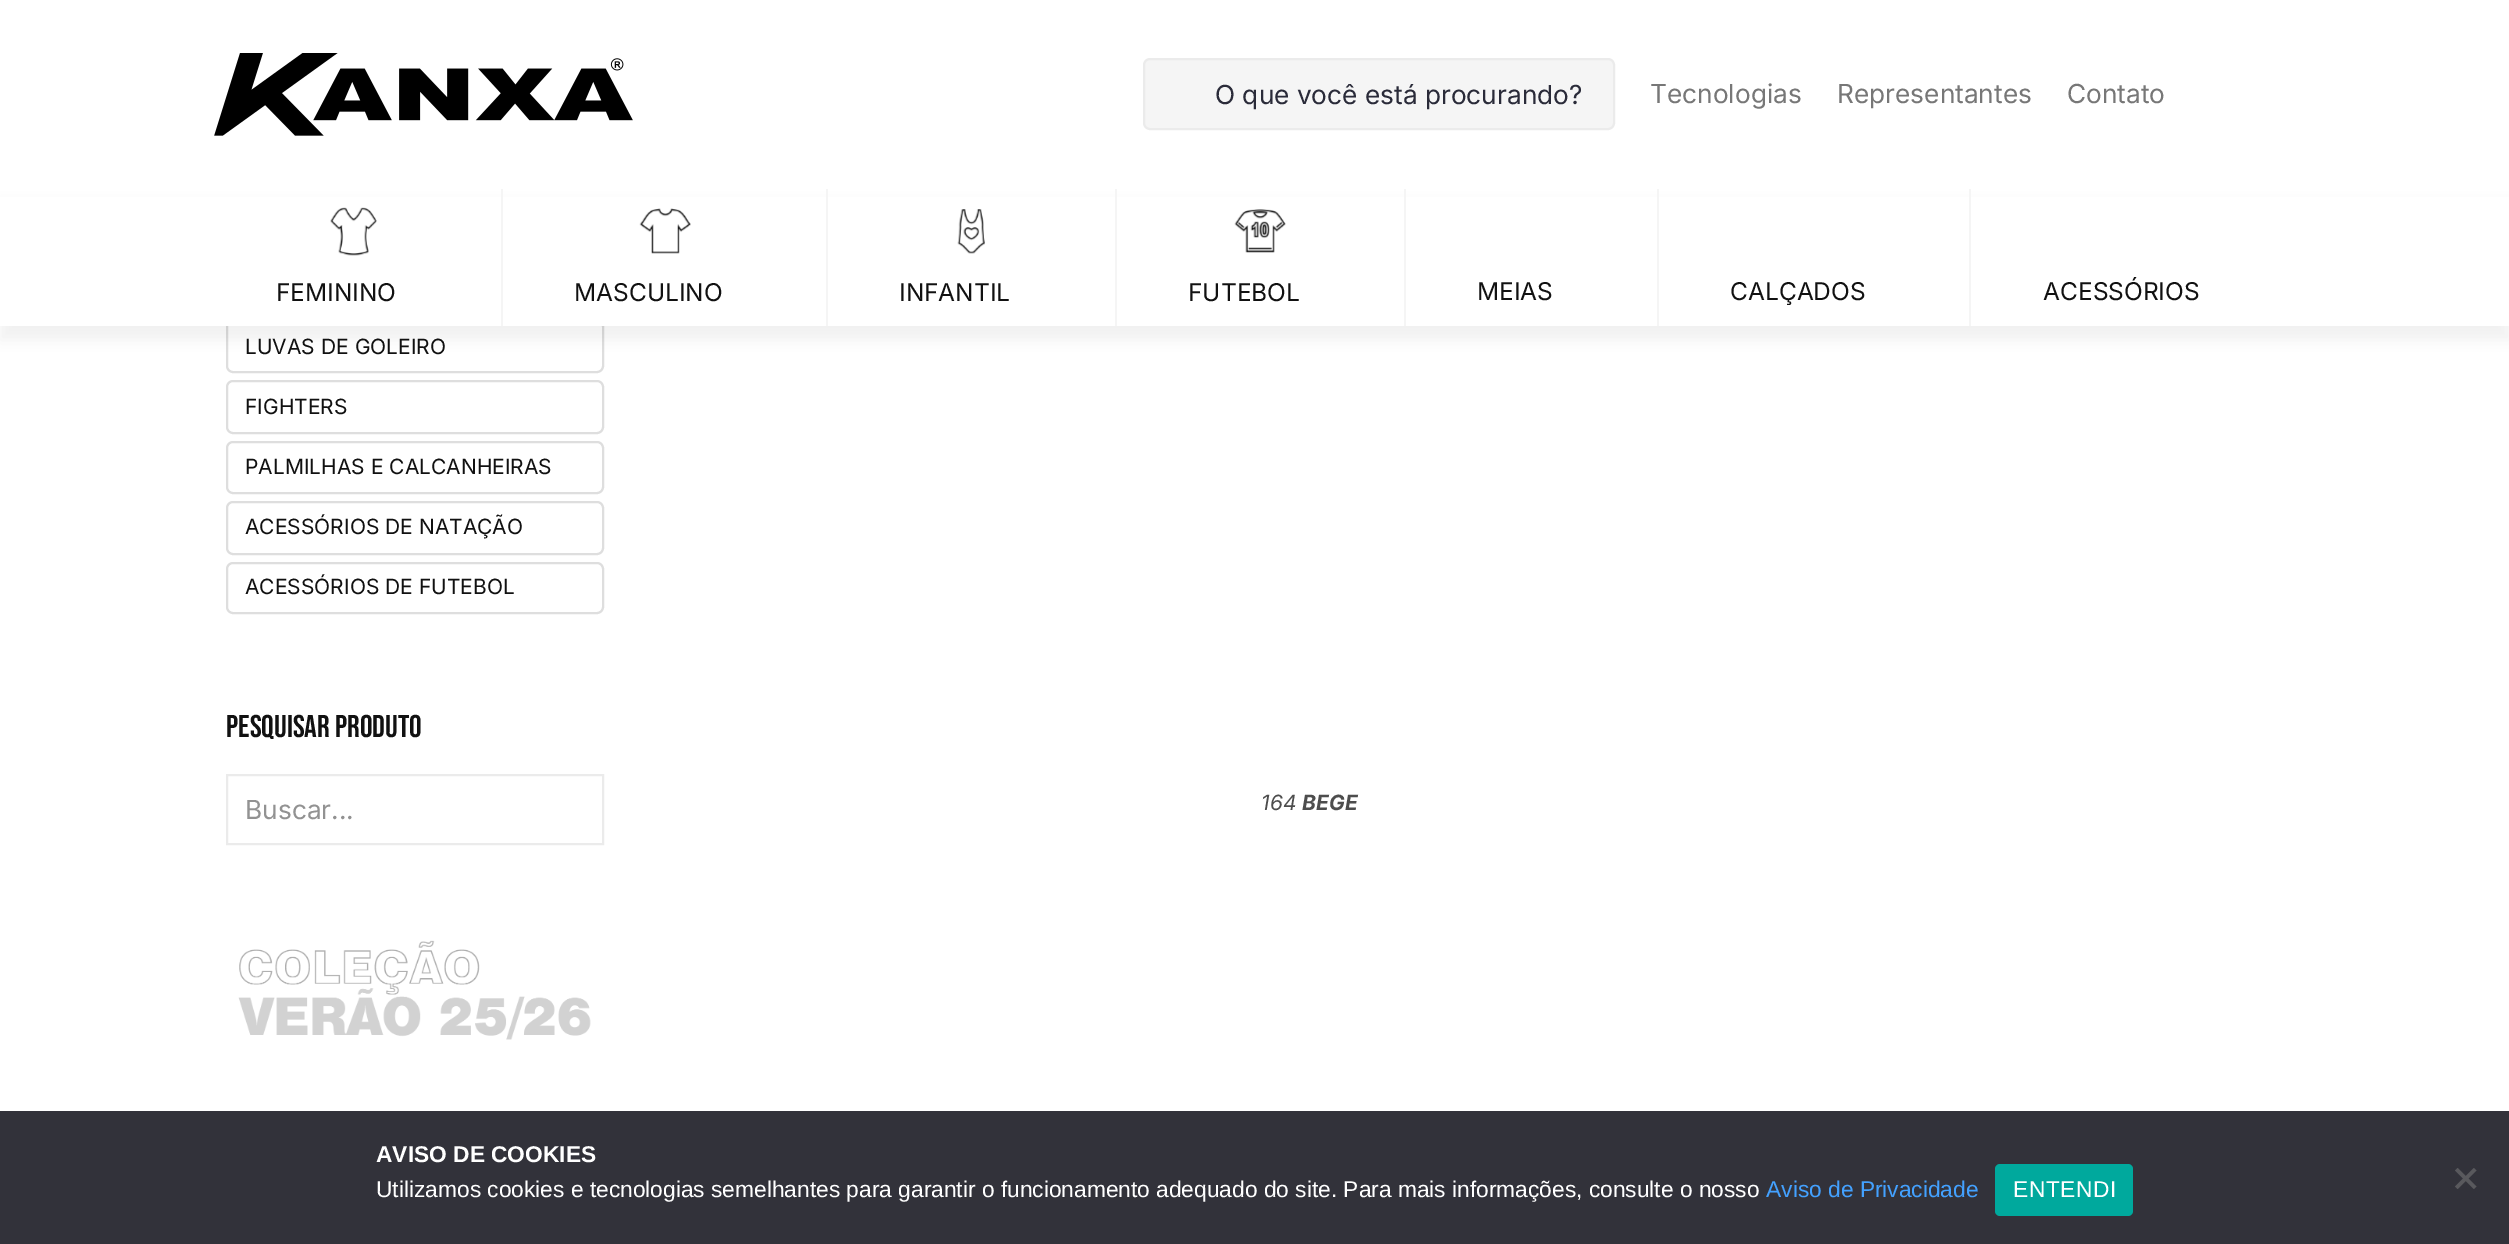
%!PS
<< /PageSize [2509 1244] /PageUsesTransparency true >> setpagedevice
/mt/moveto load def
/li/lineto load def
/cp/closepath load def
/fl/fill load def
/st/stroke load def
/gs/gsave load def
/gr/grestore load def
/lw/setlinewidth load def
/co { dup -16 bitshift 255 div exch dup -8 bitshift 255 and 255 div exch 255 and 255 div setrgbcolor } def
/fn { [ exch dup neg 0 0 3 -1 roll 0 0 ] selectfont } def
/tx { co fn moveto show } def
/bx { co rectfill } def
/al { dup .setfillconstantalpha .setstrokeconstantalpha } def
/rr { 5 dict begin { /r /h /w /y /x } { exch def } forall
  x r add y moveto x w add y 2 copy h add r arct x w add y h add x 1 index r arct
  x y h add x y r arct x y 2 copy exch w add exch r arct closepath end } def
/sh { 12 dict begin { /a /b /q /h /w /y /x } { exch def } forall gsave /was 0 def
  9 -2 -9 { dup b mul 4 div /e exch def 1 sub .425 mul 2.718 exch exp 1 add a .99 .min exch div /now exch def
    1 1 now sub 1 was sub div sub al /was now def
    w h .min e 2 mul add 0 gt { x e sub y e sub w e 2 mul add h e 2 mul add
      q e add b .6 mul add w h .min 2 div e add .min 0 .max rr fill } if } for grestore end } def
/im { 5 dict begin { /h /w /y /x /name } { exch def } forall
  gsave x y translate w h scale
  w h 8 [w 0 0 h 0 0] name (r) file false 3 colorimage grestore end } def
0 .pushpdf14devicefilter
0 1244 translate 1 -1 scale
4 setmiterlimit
0 0 2509 1244 16#FFFFFF bx
(media/1.raw) 214 53 419 83 im
16#F5F5F5 co
1144 59 470 70 6 rr gs fl gr
16#EBEBEB co
2 lw
st
16#DEDEDE co
227 321 376 51 6 rr st
16#000000 co
0 203 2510 137 0 7 .05 sh
0 197 2509 129 16#FFFFFF bx
(media/2.raw) 330 207 47 49 im
501 189 2 137 16#F5F5F5 bx
(media/3.raw) 639 208 52 46 im
826 189 2 137 16#F5F5F5 bx
(media/4.raw) 957 209 28 45 im
1115 189 2 137 16#F5F5F5 bx
(media/5.raw) 1234 209 52 44 im
1404 189 2 137 16#F5F5F5 bx
1657 189 2 137 16#F5F5F5 bx
1969 189 2 137 16#F5F5F5 bx
16#DEDEDE co
227 381 376 52 6 rr st
227 442 376 51 6 rr st
227 502 376 52 6 rr st
227 563 376 50 6 rr st
16#EBEBEB co
227 775 376 69 rectstroke
(media/6.raw) 238 940 353 100 im
0 1111 2509 133 16#32323A bx
16#00A99D co
1995 1164 138 52 5 rr fl
16#59595D co
2474 1168 mt 2476.5 1170.5 li 2457.5 1189 li 2455 1186.5 li cp fl
2455 1170.5 mt 2457.5 1168 li 2476.5 1186.5 li 2474 1189 li cp fl
(O que você está procurando?) 1215 104 /Inter-Regular 26.25 16#2A2B39 tx
(Tecnologias) 1650 103 /Inter-Regular 26.25 16#777777 tx
(Representantes) 1837 103 /Inter-Regular 26.25 16#777777 tx
(Contato) 2067 103 /Inter-Regular 26.25 16#777777 tx
(FEMININO) 276 301 /Inter-Regular 24.5 16#111111 tx
(MASCULINO) 574 301 /Inter-Regular 24.5 16#111111 tx
(INFANTIL) 899 301 /Inter-Regular 24.5 16#111111 tx
(FUTEBOL) 1188 301 /Inter-Regular 24.5 16#111111 tx
(MEIAS) 1477 300 /Inter-Regular 24.5 16#111111 tx
(CALÇADOS) 1730 300 /Inter-Regular 24.5 16#111111 tx
(ACESSÓRIOS) 2043 300 /Inter-Regular 24.5 16#111111 tx
(LUVAS DE GOLEIRO) 245 354 /Inter-Regular 21 16#111111 tx
(FIGHTERS) 245 414 /Inter-Regular 21 16#111111 tx
(PALMILHAS E CALCANHEIRAS) 245 474 /Inter-Regular 21 16#111111 tx
(ACESSÓRIOS DE NATAÇÃO) 245 534 /Inter-Regular 21 16#111111 tx
(ACESSÓRIOS DE FUTEBOL) 245 594 /Inter-Regular 21 16#111111 tx
(Pesquisar Produto) 226 737 /BebasNeue-Regular 31.5 16#111111 tx
(Buscar...) 245 819 /Inter-Regular 26.25 16#929292 tx
(164) 1261 810 /Inter-Italic 21 16#4D4D4D tx
(BEGE) 1302 810 /Inter-BoldItalic 21 16#4D4D4D tx
(AVISO DE COOKIES) 376 1162 /LiberationSans-Bold 22.75 16#FFFFFF tx
(Utilizamos cookies e tecnologias semelhantes para garantir o funcionamento adequado do site. Para mais informações, consulte o nosso) 376 1197 /LiberationSans-Regular 22.75 16#FFFFFF tx
(Aviso de Privacidade) 1766 1197 /LiberationSans-Regular 22.75 16#43A1FF tx
16#FFFFFF co
2013 1197 mt .5 0 (ENTENDI) ashow
.poppdf14devicefilter showpage
